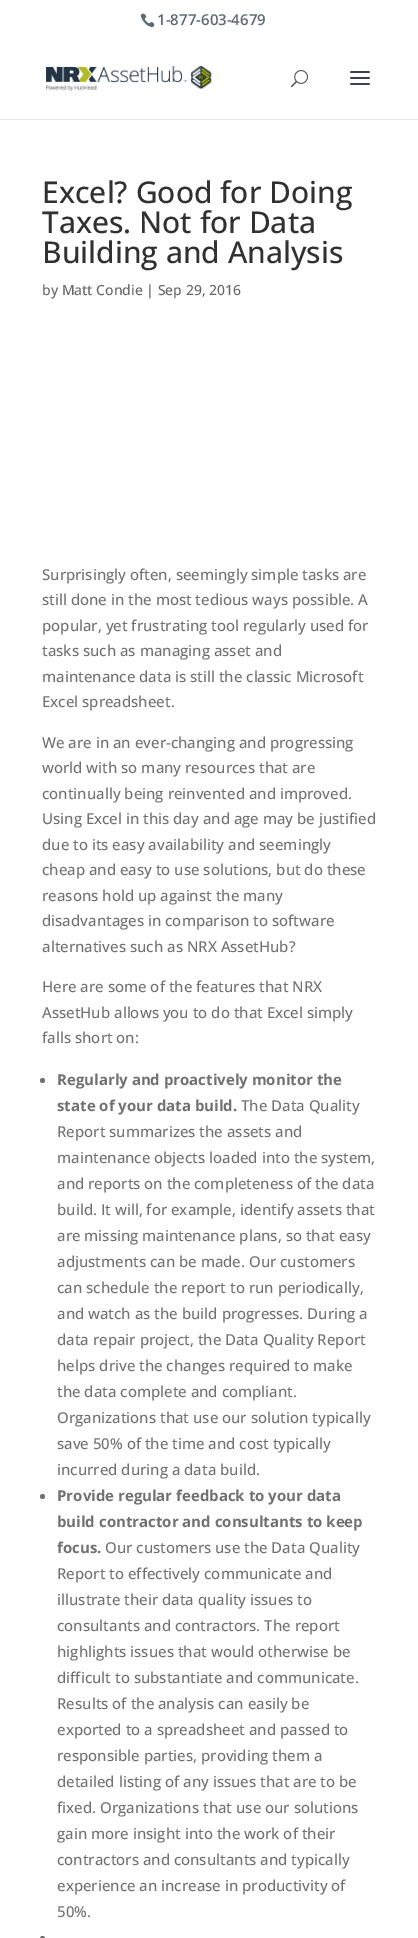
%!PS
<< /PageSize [418 1938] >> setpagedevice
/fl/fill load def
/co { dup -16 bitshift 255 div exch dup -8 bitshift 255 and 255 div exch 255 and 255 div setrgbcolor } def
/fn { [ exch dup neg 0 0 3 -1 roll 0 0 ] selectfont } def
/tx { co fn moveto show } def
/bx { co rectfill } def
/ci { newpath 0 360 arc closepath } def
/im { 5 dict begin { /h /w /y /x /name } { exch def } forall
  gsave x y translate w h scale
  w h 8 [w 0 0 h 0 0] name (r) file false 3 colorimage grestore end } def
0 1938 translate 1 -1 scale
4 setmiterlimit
0 0 418 1938 16#FFFFFF bx
(media/1.raw) 140 13 15 15 im
0 119 418 1 16#E6E6E6 bx
(media/2.raw) 46 66 166 25 im
(media/3.raw) 291 70 17 18 im
(media/4.raw) 350 71 20 14 im
16#717171 co
42.5 1080.5 2.5 ci fl
42.5 1496.5 2.5 ci fl
42.5 1938.5 2.5 ci fl
(1-877-603-4679) 157 25 /OpenSans-SemiBold 15 16#5E6A71 tx
(Excel? Good for Doing) 42 203 /OpenSans-Medium 30 16#313131 tx
(Taxes. Not for Data) 42 233 /OpenSans-Medium 30 16#313131 tx
(Building and Analysis) 42 263 /OpenSans-Medium 30 16#313131 tx
(by Matt Condie | Sep 29, 2016) 42 295 /OpenSans-Medium 14 16#666666 tx
(Surprisingly often, seemingly simple tasks are) 42 580 /OpenSans-Medium 15 16#717171 tx
(still done in the most tedious ways possible. A) 42 605 /OpenSans-Medium 15 16#717171 tx
(popular, yet frustrating tool regularly used for) 42 631 /OpenSans-Medium 15 16#717171 tx
(tasks such as managing asset and) 42 656 /OpenSans-Medium 15 16#717171 tx
(maintenance data is still the classic Microsoft) 42 682 /OpenSans-Medium 15 16#717171 tx
(Excel spreadsheet.) 42 707 /OpenSans-Medium 15 16#717171 tx
(We are in an ever-changing and progressing) 42 748 /OpenSans-Medium 15 16#717171 tx
(world with so many resources that are) 42 773 /OpenSans-Medium 15 16#717171 tx
(continually being reinvented and improved.) 42 799 /OpenSans-Medium 15 16#717171 tx
(Using Excel in this day and age may be justified) 42 824 /OpenSans-Medium 15 16#717171 tx
(due to its easy availability and seemingly) 42 850 /OpenSans-Medium 15 16#717171 tx
(cheap and easy to use solutions, but do these) 42 875 /OpenSans-Medium 15 16#717171 tx
(reasons hold up against the many) 42 901 /OpenSans-Medium 15 16#717171 tx
(disadvantages in comparison to software) 42 926 /OpenSans-Medium 15 16#717171 tx
(alternatives such as NRX AssetHub?) 42 952 /OpenSans-Medium 15 16#717171 tx
(Here are some of the features that NRX) 42 992 /OpenSans-Medium 15 16#717171 tx
(AssetHub allows you to do that Excel simply) 42 1018 /OpenSans-Medium 15 16#717171 tx
(falls short on:) 42 1043 /OpenSans-Medium 15 16#717171 tx
(Regularly and proactively monitor the) 57 1085 /OpenSans-Bold 15 16#717171 tx
(state of your data build.) 57 1111 /OpenSans-Bold 15 16#717171 tx
(The Data Quality) 241 1111 /OpenSans-Medium 15 16#717171 tx
(Report summarizes the assets and) 57 1137 /OpenSans-Medium 15 16#717171 tx
(maintenance objects loaded into the system,) 57 1163 /OpenSans-Medium 15 16#717171 tx
(and reports on the completeness of the data) 57 1189 /OpenSans-Medium 15 16#717171 tx
(build. It will, for example, identify assets that) 57 1215 /OpenSans-Medium 15 16#717171 tx
(are missing maintenance plans, so that easy) 57 1241 /OpenSans-Medium 15 16#717171 tx
(adjustments can be made. Our customers) 57 1267 /OpenSans-Medium 15 16#717171 tx
(can schedule the report to run periodically,) 57 1293 /OpenSans-Medium 15 16#717171 tx
(and watch as the build progresses. During a) 57 1319 /OpenSans-Medium 15 16#717171 tx
(data repair project, the Data Quality Report) 57 1345 /OpenSans-Medium 15 16#717171 tx
(helps drive the changes required to make) 57 1371 /OpenSans-Medium 15 16#717171 tx
(the data complete and compliant.) 57 1397 /OpenSans-Medium 15 16#717171 tx
(Organizations that use our solution typically) 57 1423 /OpenSans-Medium 15 16#717171 tx
(save 50% of the time and cost typically) 57 1449 /OpenSans-Medium 15 16#717171 tx
(incurred during a data build.) 57 1475 /OpenSans-Medium 15 16#717171 tx
(Provide regular feedback to your data) 57 1501 /OpenSans-Bold 15 16#717171 tx
(build contractor and consultants to keep) 57 1527 /OpenSans-Bold 15 16#717171 tx
(focus.) 57 1553 /OpenSans-Bold 15 16#717171 tx
(Our customers use the Data Quality) 105 1553 /OpenSans-Medium 15 16#717171 tx
(Report to effectively communicate and) 57 1579 /OpenSans-Medium 15 16#717171 tx
(illustrate their data quality issues to) 57 1605 /OpenSans-Medium 15 16#717171 tx
(consultants and contractors. The report) 57 1631 /OpenSans-Medium 15 16#717171 tx
(highlights issues that would otherwise be) 57 1657 /OpenSans-Medium 15 16#717171 tx
(difficult to substantiate and communicate.) 57 1683 /OpenSans-Medium 15 16#717171 tx
(Results of the analysis can easily be) 57 1709 /OpenSans-Medium 15 16#717171 tx
(exported to a spreadsheet and passed to) 57 1735 /OpenSans-Medium 15 16#717171 tx
(responsible parties, providing them a) 57 1761 /OpenSans-Medium 15 16#717171 tx
(detailed listing of any issues that are to be) 57 1787 /OpenSans-Medium 15 16#717171 tx
(fixed. Organizations that use our solutions) 57 1813 /OpenSans-Medium 15 16#717171 tx
(gain more insight into the work of their) 57 1839 /OpenSans-Medium 15 16#717171 tx
(contractors and consultants and typically) 57 1865 /OpenSans-Medium 15 16#717171 tx
(experience an increase in productivity of) 57 1891 /OpenSans-Medium 15 16#717171 tx
(50%.) 57 1917 /OpenSans-Medium 15 16#717171 tx
showpage
